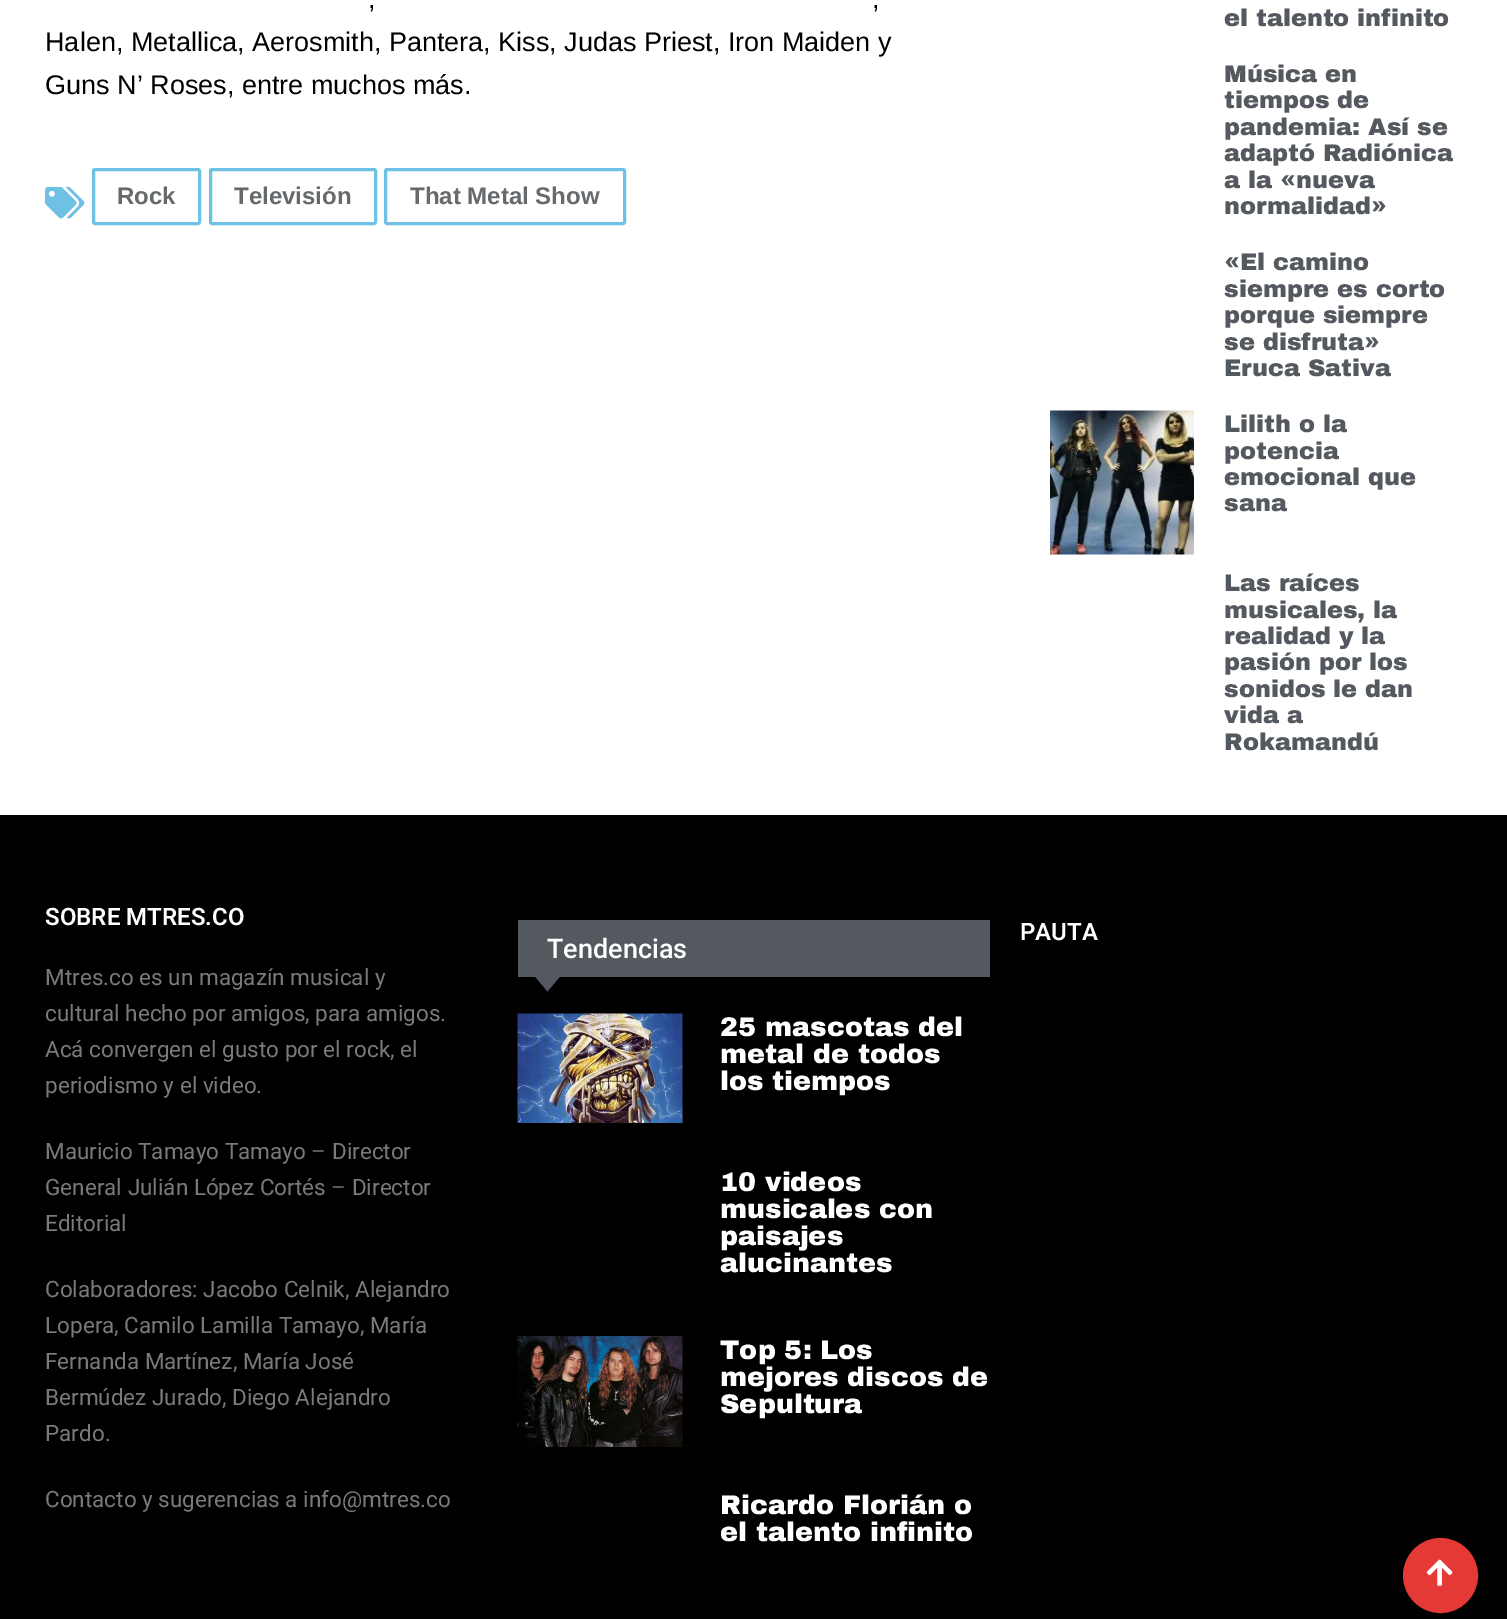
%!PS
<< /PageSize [1507 1619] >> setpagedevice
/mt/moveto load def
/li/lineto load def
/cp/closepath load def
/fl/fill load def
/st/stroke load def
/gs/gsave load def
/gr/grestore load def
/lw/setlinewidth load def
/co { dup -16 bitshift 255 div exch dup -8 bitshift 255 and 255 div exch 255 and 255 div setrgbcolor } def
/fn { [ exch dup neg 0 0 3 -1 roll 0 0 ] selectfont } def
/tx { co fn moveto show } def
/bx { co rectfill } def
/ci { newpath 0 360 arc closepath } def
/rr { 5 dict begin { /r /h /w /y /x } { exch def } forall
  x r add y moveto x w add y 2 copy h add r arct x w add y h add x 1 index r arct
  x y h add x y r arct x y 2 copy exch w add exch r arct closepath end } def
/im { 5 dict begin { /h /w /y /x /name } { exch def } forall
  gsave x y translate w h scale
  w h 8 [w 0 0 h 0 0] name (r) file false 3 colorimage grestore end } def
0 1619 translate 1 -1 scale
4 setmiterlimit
0 0 1507 1619 16#FFFFFF bx
(media/1.raw) 45 186 40 33 im
16#6EC1E4 co
3 lw
93.5 169.5 106 54 1.5 rr st
210.5 169.5 165 54 1.5 rr st
385.5 169.5 239 54 1.5 rr st
(media/2.raw) 1050 410 144 145 im
0 815 1507 804 16#000000 bx
518 920 472 57 16#54595F bx
532.5 973.5 mt 562.5 973.5 li 547.5 991.5 li cp fl
(media/3.raw) 517 1013 166 110 im
(media/4.raw) 517 1336 166 111 im
16#E53935 co
1440.5 1575.5 36 ci gs fl gr
st
(media/5.raw) 1426 1559 27 27 im
(,) 368 8 /LiberationSans-Regular 27 16#000000 tx
(,) 872 8 /LiberationSans-Regular 27 16#000000 tx
(Halen, Metallica, Aerosmith, Pantera, Kiss, Judas Priest, Iron Maiden y) 45 51 /LiberationSans-Regular 27 16#000000 tx
(Guns N’ Roses, entre muchos más.) 45 94 /LiberationSans-Regular 27 16#000000 tx
(Rock) 117 204 /LiberationSans-Bold 24 16#666A6C tx
(Televisión) 234 204 /LiberationSans-Bold 24 16#666A6C tx
(That Metal Show) 410 204 /LiberationSans-Bold 24 16#666A6C tx
(el talento infinito) 1224 26 /ArchivoBlack-Black 24 16#54595F tx
(Música en) 1224 82 /ArchivoBlack-Black 24 16#54595F tx
(tiempos de) 1224 108 /ArchivoBlack-Black 24 16#54595F tx
(pandemia: Así se) 1224 135 /ArchivoBlack-Black 24 16#54595F tx
(adaptó Radiónica) 1224 161 /ArchivoBlack-Black 24 16#54595F tx
(a la «nueva) 1224 188 /ArchivoBlack-Black 24 16#54595F tx
(normalidad») 1224 214 /ArchivoBlack-Black 24 16#54595F tx
(«El camino) 1224 270 /ArchivoBlack-Black 24 16#54595F tx
(siempre es corto) 1224 297 /ArchivoBlack-Black 24 16#54595F tx
(porque siempre) 1224 323 /ArchivoBlack-Black 24 16#54595F tx
(se disfruta») 1224 350 /ArchivoBlack-Black 24 16#54595F tx
(Eruca Sativa) 1224 376 /ArchivoBlack-Black 24 16#54595F tx
(Lilith o la) 1224 432 /ArchivoBlack-Black 24 16#54595F tx
(potencia) 1224 459 /ArchivoBlack-Black 24 16#54595F tx
(emocional que) 1224 485 /ArchivoBlack-Black 24 16#54595F tx
(sana) 1224 511 /ArchivoBlack-Black 24 16#54595F tx
(Las raíces) 1224 591 /ArchivoBlack-Black 24 16#54595F tx
(musicales, la) 1224 618 /ArchivoBlack-Black 24 16#54595F tx
(realidad y la) 1224 644 /ArchivoBlack-Black 24 16#54595F tx
(pasión por los) 1224 670 /ArchivoBlack-Black 24 16#54595F tx
(sonidos le dan) 1224 697 /ArchivoBlack-Black 24 16#54595F tx
(vida a) 1224 723 /ArchivoBlack-Black 24 16#54595F tx
(Rokamandú) 1224 750 /ArchivoBlack-Black 24 16#54595F tx
(SOBRE MTRES.CO) 45 925 /Roboto-SemiBold 24 16#FFFFFF tx
(Mtres.co es un magazín musical y) 45 985 /Roboto-Regular 22.5 16#7A7A7A tx
(cultural hecho por amigos, para amigos.) 45 1021 /Roboto-Regular 22.5 16#7A7A7A tx
(Acá convergen el gusto por el rock, el) 45 1057 /Roboto-Regular 22.5 16#7A7A7A tx
(periodismo y el video.) 45 1093 /Roboto-Regular 22.5 16#7A7A7A tx
(Mauricio Tamayo Tamayo – Director) 45 1159 /Roboto-Regular 22.5 16#7A7A7A tx
(General Julián López Cortés – Director) 45 1195 /Roboto-Regular 22.5 16#7A7A7A tx
(Editorial) 45 1231 /Roboto-Regular 22.5 16#7A7A7A tx
(Colaboradores: Jacobo Celnik, Alejandro) 45 1297 /Roboto-Regular 22.5 16#7A7A7A tx
(Lopera, Camilo Lamilla Tamayo, María) 45 1333 /Roboto-Regular 22.5 16#7A7A7A tx
(Fernanda Martínez, María José) 45 1369 /Roboto-Regular 22.5 16#7A7A7A tx
(Bermúdez Jurado, Diego Alejandro) 45 1405 /Roboto-Regular 22.5 16#7A7A7A tx
(Pardo.) 45 1441 /Roboto-Regular 22.5 16#7A7A7A tx
(Contacto y sugerencias a info@mtres.co) 45 1507 /Roboto-Regular 22.5 16#7A7A7A tx
(PAUTA) 1020 940 /Roboto-SemiBold 24 16#FFFFFF tx
(Tendencias) 547 958 /Roboto-Medium 27 16#FFFFFF tx
(25 mascotas del) 720 1036 /ArchivoBlack-Black 27 16#FFFFFF tx
(metal de todos) 720 1063 /ArchivoBlack-Black 27 16#FFFFFF tx
(los tiempos) 720 1090 /ArchivoBlack-Black 27 16#FFFFFF tx
(10 videos) 720 1191 /ArchivoBlack-Black 27 16#FFFFFF tx
(musicales con) 720 1218 /ArchivoBlack-Black 27 16#FFFFFF tx
(paisajes) 720 1245 /ArchivoBlack-Black 27 16#FFFFFF tx
(alucinantes) 720 1272 /ArchivoBlack-Black 27 16#FFFFFF tx
(Top 5: Los) 720 1359 /ArchivoBlack-Black 27 16#FFFFFF tx
(mejores discos de) 720 1386 /ArchivoBlack-Black 27 16#FFFFFF tx
(Sepultura) 720 1413 /ArchivoBlack-Black 27 16#FFFFFF tx
(Ricardo Florián o) 720 1514 /ArchivoBlack-Black 27 16#FFFFFF tx
(el talento infinito) 720 1541 /ArchivoBlack-Black 27 16#FFFFFF tx
showpage
